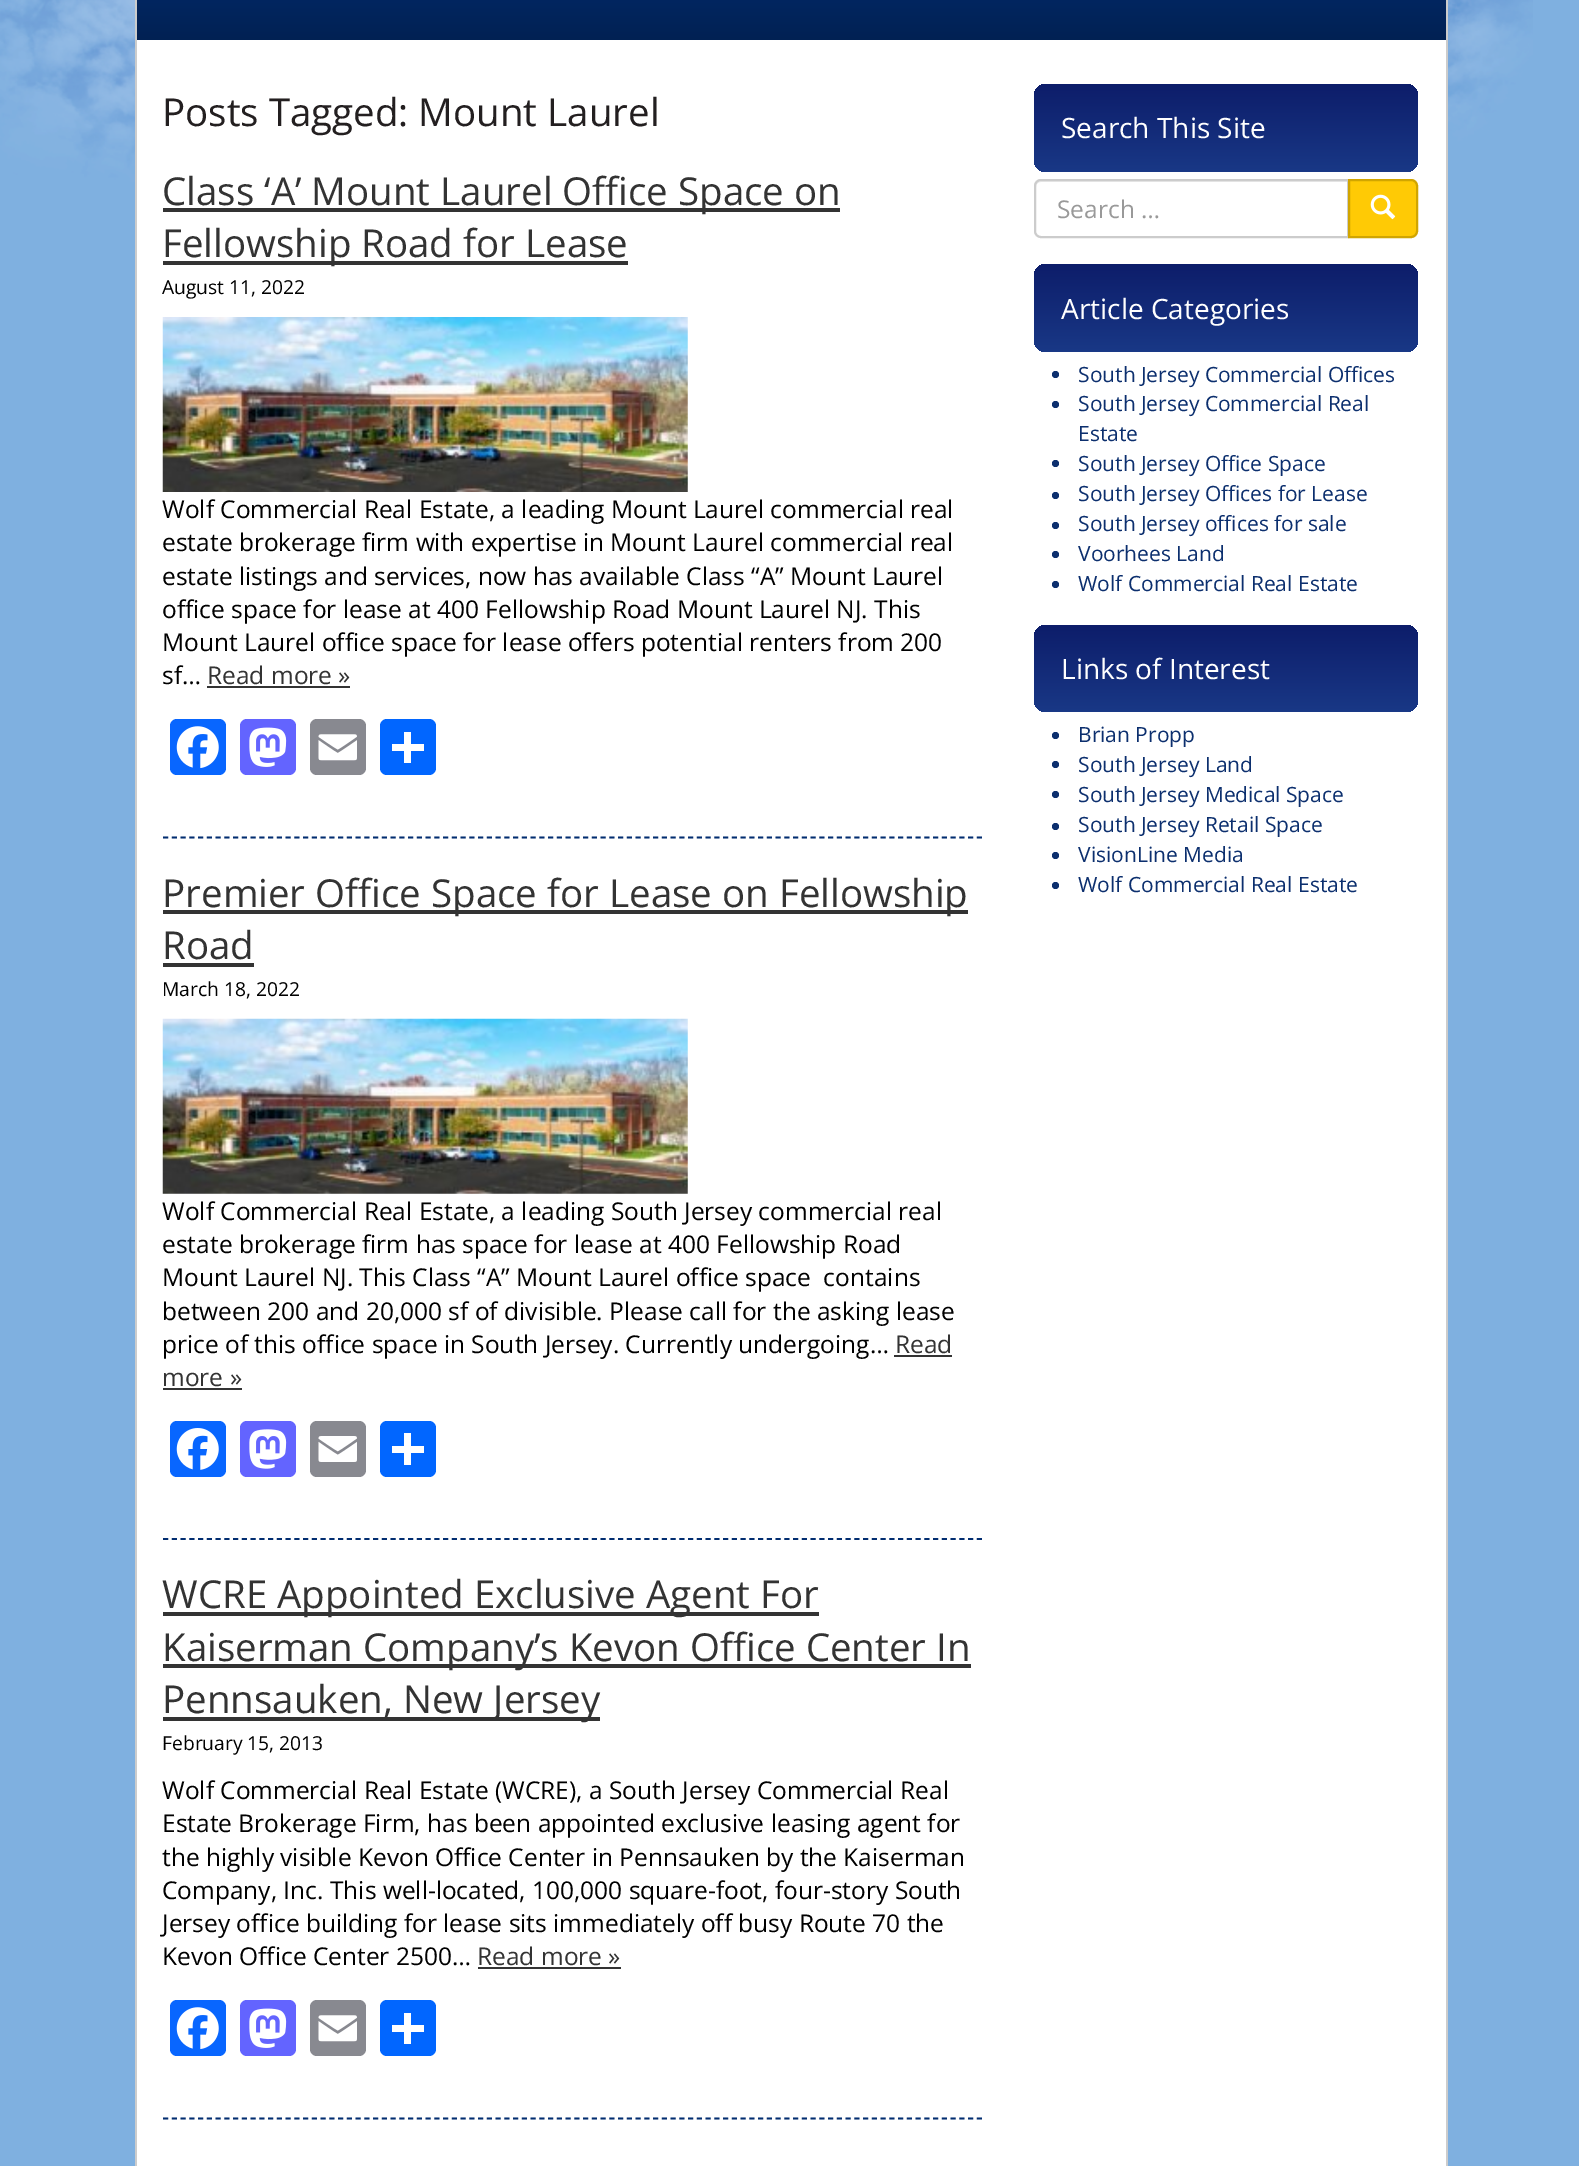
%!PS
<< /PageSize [1579 2166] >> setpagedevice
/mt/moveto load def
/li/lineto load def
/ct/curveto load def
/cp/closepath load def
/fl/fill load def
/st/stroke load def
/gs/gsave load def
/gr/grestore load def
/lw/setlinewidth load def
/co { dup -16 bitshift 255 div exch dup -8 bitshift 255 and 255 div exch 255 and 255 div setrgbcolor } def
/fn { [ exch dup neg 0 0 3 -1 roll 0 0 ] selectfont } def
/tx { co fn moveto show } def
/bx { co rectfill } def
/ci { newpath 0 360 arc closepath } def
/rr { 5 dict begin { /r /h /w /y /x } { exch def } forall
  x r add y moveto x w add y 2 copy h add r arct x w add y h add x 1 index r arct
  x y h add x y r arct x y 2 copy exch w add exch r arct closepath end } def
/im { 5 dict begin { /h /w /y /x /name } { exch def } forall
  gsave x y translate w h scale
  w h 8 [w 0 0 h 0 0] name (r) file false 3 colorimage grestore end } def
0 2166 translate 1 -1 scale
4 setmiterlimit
0 0 1579 2166 16#7FB0E0 bx
(media/1.raw) 0 0 1533 195 im
137 40 1309 2126 16#FFFFFF bx
1446 0 2 2166 16#CCCCCC bx
135 0 2 2166 16#CCCCCC bx
gs 137 0 mt 1446 0 li 1446 40 li 137 40 li cp clip newpath
<< /ShadingType 2 /ColorSpace /DeviceRGB /Coords [791 -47 791 40] /Extend [true true] /Function << /FunctionType 2 /Domain [0 1] /C0 [.008 .176 .439] /C1 [.004 .129 .325] /N 1 >> >> shfill gr
16#022D70 co
1.8 lw
[5.25 3.5] 0 setdash
163 837.5 mt 982 837.5 li st
163 208 677 4 16#333333 bx
163 261 465 4 16#333333 bx
(media/2.raw) 162 317 526 175 im
207 686 143 2 16#333333 bx
16#0866FF co
170 719 56 56 7 rr fl
(media/3.raw) 176 726 43 43 im
16#6364FF co
240 719 56 56 7 rr fl
(media/4.raw) 249 727 38 40 im
16#888990 co
310 719 56 56 7 rr fl
(media/5.raw) 318 734 39 27 im
16#0166FF co
380 719 56 56 7 rr fl
404 732 7 31 16#FFFFFF bx
392 744 32 7 16#FFFFFF bx
16#022D70 co
163 1539 mt 982 1539 li st
163 910 805 4 16#333333 bx
163 963 91 4 16#333333 bx
(media/6.raw) 162 1018 526 176 im
894 1355 58 2 16#333333 bx
163 1388 79 2 16#333333 bx
16#0866FF co
170 1421 56 56 7 rr fl
(media/7.raw) 176 1428 43 42 im
16#6364FF co
240 1421 56 56 7 rr fl
(media/8.raw) 249 1429 38 40 im
16#888990 co
310 1421 56 56 7 rr fl
(media/9.raw) 318 1436 39 26 im
16#0166FF co
380 1421 56 56 7 rr fl
404 1433 7 32 16#FFFFFF bx
392 1446 32 7 16#FFFFFF bx
16#022D70 co
163 2118.5 mt 982 2118.5 li st
163 1612 656 4 16#333333 bx
163 1664 808 4 16#333333 bx
163 1717 437 4 16#333333 bx
478 1967 143 2 16#333333 bx
16#0866FF co
170 2000 56 56 7 rr fl
(media/3.raw) 176 2007 43 43 im
16#6364FF co
240 2000 56 56 7 rr fl
(media/4.raw) 249 2008 38 40 im
16#888990 co
310 2000 56 56 7 rr fl
(media/5.raw) 318 2015 39 27 im
16#0166FF co
380 2000 56 56 7 rr fl
404 2013 7 31 16#FFFFFF bx
392 2025 32 7 16#FFFFFF bx
gs 1034 84 384 88 12 rr clip newpath
<< /ShadingType 2 /ColorSpace /DeviceRGB /Coords [1226 84 1226 172] /Extend [true true] /Function << /FunctionType 2 /Domain [0 1] /C0 [.051 .114 .416] /C1 [.098 .22 .525] /N 1 >> >> shfill gr
16#ECECEC co
1041 182 mt 1348 182 li 1348 180 li 1040 180 li 1036 181 1036 184 1036 187 ct 1036 184 1038 182 1041 182 ct cp fl
16#CCCCCC co
2 lw
[] 0 setdash
1041 180 mt 1348 180 li 1348 237 li 1041 237 li 1037.5 237 1035 234.5 1035 231 ct 1035 186 li 1035 182.5 1037.5 180 1041 180 ct cp st
16#FFCA05 co
1349 180 mt 1411 180 li 1414.5 180 1417 182.5 1417 186 ct 1417 231 li 1417 234.5 1414.5 237 1411 237 ct 1349 237 li cp gs fl gr
16#D1A500 co
st
(media/10.raw) 1370 194 26 26 im
gs 1034 264 384 88 12 rr clip newpath
<< /ShadingType 2 /ColorSpace /DeviceRGB /Coords [1226 264 1226 352] /Extend [true true] /Function << /FunctionType 2 /Domain [0 1] /C0 [.051 .114 .416] /C1 [.098 .22 .525] /N 1 >> >> shfill gr
16#0C2F6E co
1055.5 374.5 3.5 ci fl
1055.5 404.5 3.5 ci fl
1055.5 463.5 3.5 ci fl
1055.5 495.5 3.5 ci fl
1055.5 525.5 3.5 ci fl
1055.5 554.5 3.5 ci fl
1055.5 584.5 3.5 ci fl
gs 1034 625 384 87 12 rr clip newpath
<< /ShadingType 2 /ColorSpace /DeviceRGB /Coords [1226 625 1226 712] /Extend [true true] /Function << /FunctionType 2 /Domain [0 1] /C0 [.051 .114 .416] /C1 [.098 .22 .525] /N 1 >> >> shfill gr
1055.5 735.5 3.5 ci fl
1055.5 764.5 3.5 ci fl
1055.5 794.5 3.5 ci fl
1055.5 826.5 3.5 ci fl
1055.5 855.5 3.5 ci fl
1055.5 885.5 3.5 ci fl
(Posts Tagged: Mount Laurel) 162 126 /OpenSans-Regular 38.5 16#231F20 tx
(Class ‘A’ Mount Laurel Office Space on) 162 205 /OpenSans-Regular 38.5 16#333333 tx
(Fellowship Road for Lease) 162 257 /OpenSans-Regular 38.5 16#333333 tx
(August 11, 2022) 162 294 /OpenSans-Regular 19.25 16#000000 tx
(Wolf Commercial Real Estate, a leading Mount Laurel commercial real) 162 518 /OpenSans-Regular 24.5 16#000000 tx
(estate brokerage firm with expertise in Mount Laurel commercial real) 162 551 /OpenSans-Regular 24.5 16#000000 tx
(estate listings and services, now has available Class “A” Mount Laurel) 162 585 /OpenSans-Regular 24.5 16#000000 tx
(office space for lease at 400 Fellowship Road Mount Laurel NJ. This) 162 618 /OpenSans-Regular 24.5 16#000000 tx
(Mount Laurel office space for lease offers potential renters from 200) 162 651 /OpenSans-Regular 24.5 16#000000 tx
(sf…) 162 684 /OpenSans-Regular 24.5 16#000000 tx
(Read more ») 207 684 /OpenSans-Regular 24.5 16#333333 tx
(Premier Office Space for Lease on Fellowship) 162 907 /OpenSans-Regular 38.5 16#333333 tx
(Road) 162 959 /OpenSans-Regular 38.5 16#333333 tx
(March 18, 2022) 162 996 /OpenSans-Regular 19.25 16#000000 tx
(Wolf Commercial Real Estate, a leading South Jersey commercial real) 162 1220 /OpenSans-Regular 24.5 16#000000 tx
(estate brokerage firm has space for lease at 400 Fellowship Road) 162 1253 /OpenSans-Regular 24.5 16#000000 tx
(Mount Laurel NJ. This Class “A” Mount Laurel office space  contains) 162 1286 /OpenSans-Regular 24.5 16#000000 tx
(between 200 and 20,000 sf of divisible. Please call for the asking lease) 162 1320 /OpenSans-Regular 24.5 16#000000 tx
(price of this office space in South Jersey. Currently undergoing…) 162 1353 /OpenSans-Regular 24.5 16#000000 tx
(Read) 895 1353 /OpenSans-Regular 24.5 16#333333 tx
(more ») 162 1386 /OpenSans-Regular 24.5 16#333333 tx
(WCRE Appointed Exclusive Agent For) 162 1608 /OpenSans-Regular 38.5 16#333333 tx
(Kaiserman Company’s Kevon Office Center In) 162 1661 /OpenSans-Regular 38.5 16#333333 tx
(Pennsauken, New Jersey) 162 1713 /OpenSans-Regular 38.5 16#333333 tx
(February 15, 2013) 162 1750 /OpenSans-Regular 19.25 16#000000 tx
(Wolf Commercial Real Estate \(WCRE\), a South Jersey Commercial Real) 162 1799 /OpenSans-Regular 24.5 16#000000 tx
(Estate Brokerage Firm, has been appointed exclusive leasing agent for) 162 1832 /OpenSans-Regular 24.5 16#000000 tx
(the highly visible Kevon Office Center in Pennsauken by the Kaiserman) 162 1866 /OpenSans-Regular 24.5 16#000000 tx
(Company, Inc. This well-located, 100,000 square-foot, four-story South) 162 1899 /OpenSans-Regular 24.5 16#000000 tx
(Jersey office building for lease sits immediately off busy Route 70 the) 162 1932 /OpenSans-Regular 24.5 16#000000 tx
(Kevon Office Center 2500…) 162 1965 /OpenSans-Regular 24.5 16#000000 tx
(Read more ») 477 1965 /OpenSans-Regular 24.5 16#333333 tx
(Search This Site) 1061 138 /OpenSans-Regular 28 16#FFFFFF tx
(Search …) 1057 218 /OpenSans-Regular 24.5 16#999999 tx
(Article Categories) 1061 319 /OpenSans-Regular 28 16#FFFFFF tx
(South Jersey Commercial Offices) 1078 382 /OpenSans-Regular 21 16#0C2F6E tx
(South Jersey Commercial Real) 1078 411 /OpenSans-Regular 21 16#0C2F6E tx
(Estate) 1078 441 /OpenSans-Regular 21 16#0C2F6E tx
(South Jersey Office Space) 1078 471 /OpenSans-Regular 21 16#0C2F6E tx
(South Jersey Offices for Lease) 1078 501 /OpenSans-Regular 21 16#0C2F6E tx
(South Jersey offices for sale) 1078 531 /OpenSans-Regular 21 16#0C2F6E tx
(Voorhees Land) 1078 561 /OpenSans-Regular 21 16#0C2F6E tx
(Wolf Commercial Real Estate) 1078 591 /OpenSans-Regular 21 16#0C2F6E tx
(Links of Interest) 1061 679 /OpenSans-Regular 28 16#FFFFFF tx
(Brian Propp) 1078 742 /OpenSans-Regular 21 16#0C2F6E tx
(South Jersey Land) 1078 772 /OpenSans-Regular 21 16#0C2F6E tx
(South Jersey Medical Space) 1078 802 /OpenSans-Regular 21 16#0C2F6E tx
(South Jersey Retail Space) 1078 832 /OpenSans-Regular 21 16#0C2F6E tx
(VisionLine Media) 1078 862 /OpenSans-Regular 21 16#0C2F6E tx
(Wolf Commercial Real Estate) 1078 892 /OpenSans-Regular 21 16#0C2F6E tx
showpage
